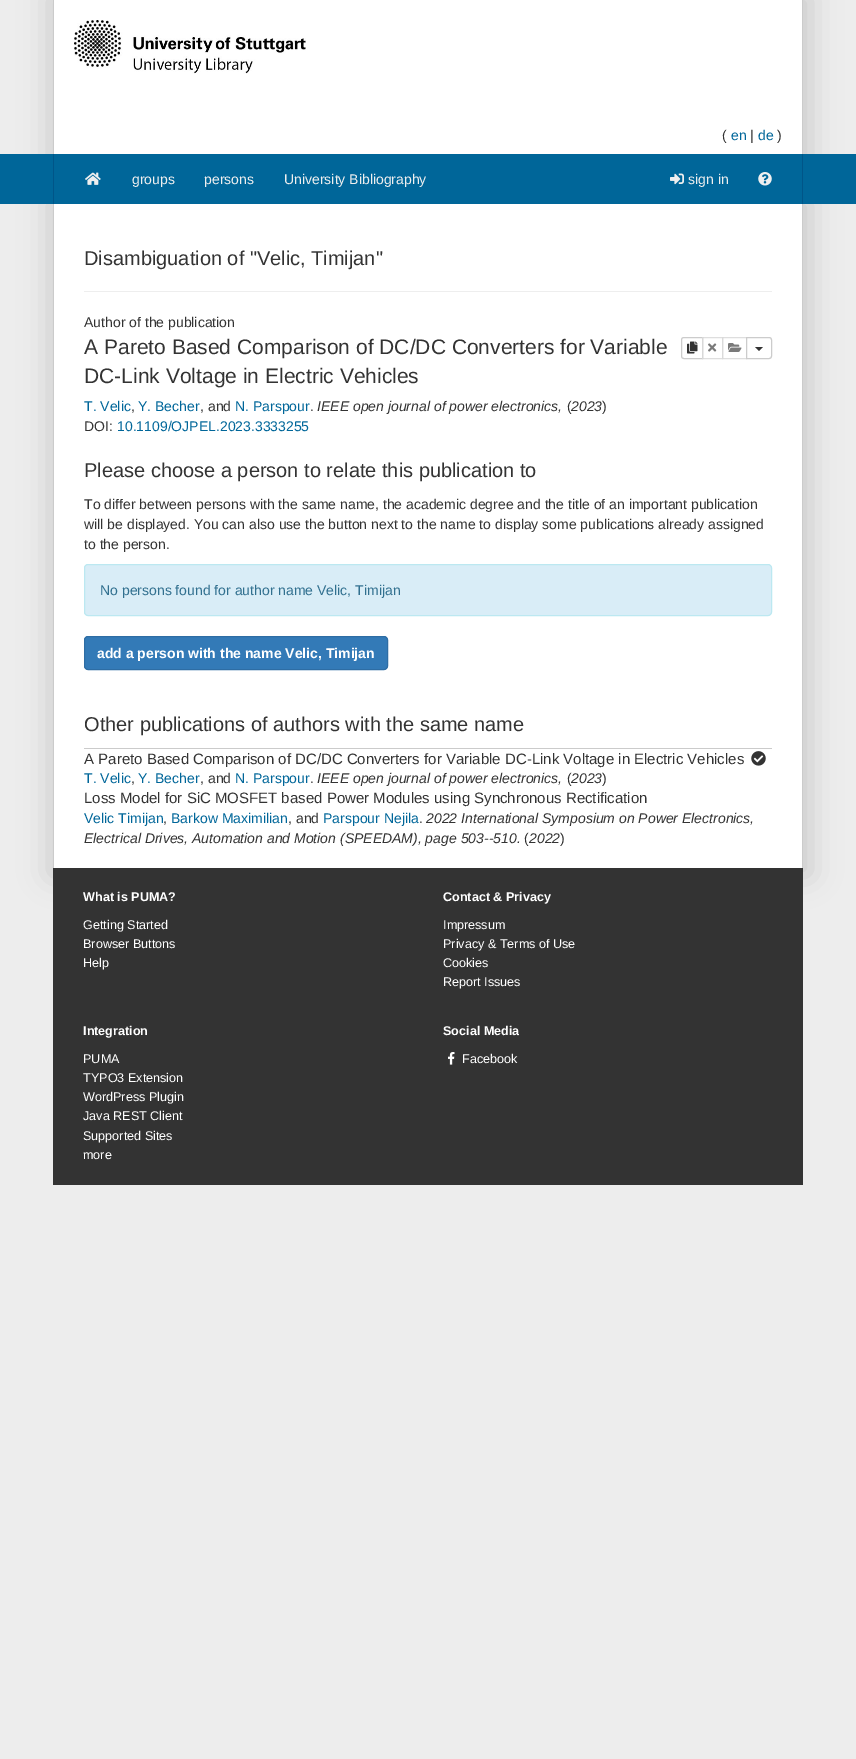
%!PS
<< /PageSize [856 1759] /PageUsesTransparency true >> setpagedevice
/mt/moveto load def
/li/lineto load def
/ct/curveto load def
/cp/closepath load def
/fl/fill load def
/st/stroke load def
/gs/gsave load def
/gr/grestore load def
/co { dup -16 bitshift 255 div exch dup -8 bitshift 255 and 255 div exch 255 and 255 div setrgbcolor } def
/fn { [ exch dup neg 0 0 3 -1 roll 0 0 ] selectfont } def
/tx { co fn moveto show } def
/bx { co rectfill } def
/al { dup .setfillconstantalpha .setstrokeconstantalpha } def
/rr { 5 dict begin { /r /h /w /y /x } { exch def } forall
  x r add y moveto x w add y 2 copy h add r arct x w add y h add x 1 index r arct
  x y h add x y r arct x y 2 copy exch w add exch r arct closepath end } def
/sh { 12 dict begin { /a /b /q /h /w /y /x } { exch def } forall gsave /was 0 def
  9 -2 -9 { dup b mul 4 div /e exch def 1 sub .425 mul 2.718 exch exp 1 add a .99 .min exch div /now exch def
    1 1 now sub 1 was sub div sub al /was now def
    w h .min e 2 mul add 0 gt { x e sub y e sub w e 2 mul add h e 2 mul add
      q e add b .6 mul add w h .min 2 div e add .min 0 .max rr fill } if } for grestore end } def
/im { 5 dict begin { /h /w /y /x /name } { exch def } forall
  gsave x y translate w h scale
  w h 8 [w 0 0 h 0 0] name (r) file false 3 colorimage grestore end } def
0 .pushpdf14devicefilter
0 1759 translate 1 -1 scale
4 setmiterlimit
0 0 856 1759 16#EDEDED bx
16#CBCBCB co
49 -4 762 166 0 15 1 sh
54 0 748 154 16#FFFFFF bx
802 0 1 154 16#CBCBCB bx
53 0 1 154 16#CBCBCB bx
(media/1.raw) 74 20 232 54 im
49 200 762 676 0 15 1 sh
0 154 856 50 16#006699 bx
802 154 1 50 16#005588 bx
53 154 1 50 16#005588 bx
(media/2.raw) 85 172 16 13 im
(media/3.raw) 670 173 14 12 im
(media/4.raw) 758 172 14 14 im
54 204 748 664 16#FFFFFF bx
802 204 1 664 16#CBCBCB bx
53 204 1 664 16#CBCBCB bx
84 291 688 1 16#EEEEEE bx
16#CCCCCC co
684 337.5 mt 702.5 337.5 li 702.5 358.5 li 684 358.5 li 682.5 358.5 681.5 357.5 681.5 356 ct 681.5 340 li 681.5 338.5 682.5 337.5 684 337.5 ct cp st
(media/5.raw) 687 341 11 13 im
0.65 al
702 337 1 22 16#FFFFFF bx
16#CCCCCC co
702.5 337.5 20 21 rectstroke
1 al
(media/6.raw) 708 343 9 9 im
0.65 al
722 337 1 22 16#FFFFFF bx
16#CCCCCC co
722.5 337.5 24 21 rectstroke
1 al
(media/7.raw) 728 343 14 9 im
16#FFFFFF co
746.5 337.5 mt 769 337.5 li 770.5 337.5 771.5 338.5 771.5 340 ct 771.5 356 li 771.5 357.5 770.5 358.5 769 358.5 ct 746.5 358.5 li cp gs fl gr
16#CCCCCC co
st
16#333333 co
755 347 mt 763 347 li 759 351 li cp fl
16#D9EDF7 co
84.5 564.5 687 51 3.5 rr gs fl gr
16#BCE8F1 co
st
16#337AB7 co
84.5 636.5 303 33 3.5 rr gs fl gr
16#2E6DA4 co
st
84 748 688 1 16#CBCBCB bx
(media/8.raw) 751 751 15 15 im
53 868 750 317 16#333333 bx
(media/9.raw) 448 1052 7 13 im
(\() 722 140 /LiberationSans-Regular 14 16#333333 tx
(en) 731 140 /LiberationSans-Regular 14 16#006699 tx
(|) 750 140 /LiberationSans-Regular 14 16#333333 tx
(de) 758 140 /LiberationSans-Regular 14 16#006699 tx
(\)) 777 140 /LiberationSans-Regular 14 16#333333 tx
(groups) 132 184 /LiberationSans-Regular 14 16#EFEFEF tx
(persons) 204 184 /LiberationSans-Regular 14 16#EFEFEF tx
(University Bibliography) 284 184 /LiberationSans-Regular 14 16#EFEFEF tx
(sign in) 688 184 /LiberationSans-Regular 14 16#EFEFEF tx
(Disambiguation of "Velic, Timijan") 84 265 /LiberationSans-Regular 20 16#333333 tx
(Author of the publication) 84 327 /LiberationSans-Regular 14 16#333333 tx
(A Pareto Based Comparison of DC/DC Converters for Variable) 84 354 /LiberationSans-Regular 21 16#333333 tx
(DC-Link Voltage in Electric Vehicles) 84 383 /LiberationSans-Regular 21 16#333333 tx
(T. Velic) 84 411 /LiberationSans-Regular 14 16#006699 tx
(,) 131 411 /LiberationSans-Regular 14 16#333333 tx
(Y. Becher) 138 411 /LiberationSans-Regular 14 16#006699 tx
(, and) 200 411 /LiberationSans-Regular 14 16#333333 tx
(N. Parspour) 235 411 /LiberationSans-Regular 14 16#006699 tx
(.) 310 411 /LiberationSans-Regular 14 16#333333 tx
(IEEE open journal of power electronics,) 317 411 /LiberationSans-Italic 14 16#333333 tx
(\() 567 411 /LiberationSans-Regular 14 16#333333 tx
(2023) 571 411 /LiberationSans-Italic 14 16#333333 tx
(\)) 602 411 /LiberationSans-Regular 14 16#333333 tx
(DOI:) 84 431 /LiberationSans-Regular 14 16#333333 tx
(10.1109/OJPEL.2023.3333255) 117 431 /LiberationSans-Regular 14 16#006699 tx
(Please choose a person to relate this publication to) 84 477 /LiberationSans-Regular 20 16#333333 tx
(To differ between persons with the same name, the academic degree and the title of an important publication) 84 509 /LiberationSans-Regular 14 16#333333 tx
(will be displayed. You can also use the button next to the name to display some publications already assigned) 84 529 /LiberationSans-Regular 14 16#333333 tx
(to the person.) 84 549 /LiberationSans-Regular 14 16#333333 tx
(No persons found for author name Velic, Timijan) 100 595 /LiberationSans-Regular 14 16#31708F tx
(add a person with the name Velic, Timijan) 97 658 /LiberationSans-Bold 14 16#FFFFFF tx
(Other publications of authors with the same name) 84 731 /LiberationSans-Regular 20 16#333333 tx
(A Pareto Based Comparison of DC/DC Converters for Variable DC-Link Voltage in Electric Vehicles) 84 764 /LiberationSans-Regular 15 16#333333 tx
(T. Velic) 84 783 /LiberationSans-Regular 14 16#006699 tx
(,) 131 783 /LiberationSans-Regular 14 16#333333 tx
(Y. Becher) 138 783 /LiberationSans-Regular 14 16#006699 tx
(, and) 200 783 /LiberationSans-Regular 14 16#333333 tx
(N. Parspour) 235 783 /LiberationSans-Regular 14 16#006699 tx
(.) 310 783 /LiberationSans-Regular 14 16#333333 tx
(IEEE open journal of power electronics,) 317 783 /LiberationSans-Italic 14 16#333333 tx
(\() 567 783 /LiberationSans-Regular 14 16#333333 tx
(2023) 571 783 /LiberationSans-Italic 14 16#333333 tx
(\)) 602 783 /LiberationSans-Regular 14 16#333333 tx
(Loss Model for SiC MOSFET based Power Modules using Synchronous Rectification) 84 803 /LiberationSans-Regular 15 16#333333 tx
(Velic Timijan) 84 823 /LiberationSans-Regular 14 16#006699 tx
(,) 163 823 /LiberationSans-Regular 14 16#333333 tx
(Barkow Maximilian) 171 823 /LiberationSans-Regular 14 16#006699 tx
(, and) 288 823 /LiberationSans-Regular 14 16#333333 tx
(Parspour Nejila) 323 823 /LiberationSans-Regular 14 16#006699 tx
(.) 419 823 /LiberationSans-Regular 14 16#333333 tx
(2022 International Symposium on Power Electronics,) 426 823 /LiberationSans-Italic 14 16#333333 tx
(Electrical Drives, Automation and Motion \(SPEEDAM\), page 503--510.) 84 843 /LiberationSans-Italic 14 16#333333 tx
(\() 524 843 /LiberationSans-Regular 14 16#333333 tx
(2022) 529 843 /LiberationSans-Italic 14 16#333333 tx
(\)) 560 843 /LiberationSans-Regular 14 16#333333 tx
(What is PUMA?) 83 901 /LiberationSans-Bold 12.6 16#FFFFFF tx
(Getting Started) 83 929 /LiberationSans-Regular 12.6 16#FFFFFF tx
(Browser Buttons) 83 948 /LiberationSans-Regular 12.6 16#FFFFFF tx
(Help) 83 967 /LiberationSans-Regular 12.6 16#FFFFFF tx
(Contact & Privacy) 443 901 /LiberationSans-Bold 12.6 16#FFFFFF tx
(Impressum) 443 929 /LiberationSans-Regular 12.6 16#FFFFFF tx
(Privacy & Terms of Use) 443 948 /LiberationSans-Regular 12.6 16#FFFFFF tx
(Cookies) 443 967 /LiberationSans-Regular 12.6 16#FFFFFF tx
(Report Issues) 443 986 /LiberationSans-Regular 12.6 16#FFFFFF tx
(Integration) 83 1035 /LiberationSans-Bold 12.6 16#FFFFFF tx
(PUMA) 83 1063 /LiberationSans-Regular 12.6 16#FFFFFF tx
(TYPO3 Extension) 83 1082 /LiberationSans-Regular 12.6 16#FFFFFF tx
(WordPress Plugin) 83 1101 /LiberationSans-Regular 12.6 16#FFFFFF tx
(Java REST Client) 83 1120 /LiberationSans-Regular 12.6 16#FFFFFF tx
(Supported Sites) 83 1140 /LiberationSans-Regular 12.6 16#FFFFFF tx
(more) 83 1159 /LiberationSans-Regular 12.6 16#FFFFFF tx
(Social Media) 443 1035 /LiberationSans-Bold 12.6 16#FFFFFF tx
(Facebook) 462 1063 /LiberationSans-Regular 12.6 16#FFFFFF tx
.poppdf14devicefilter showpage
